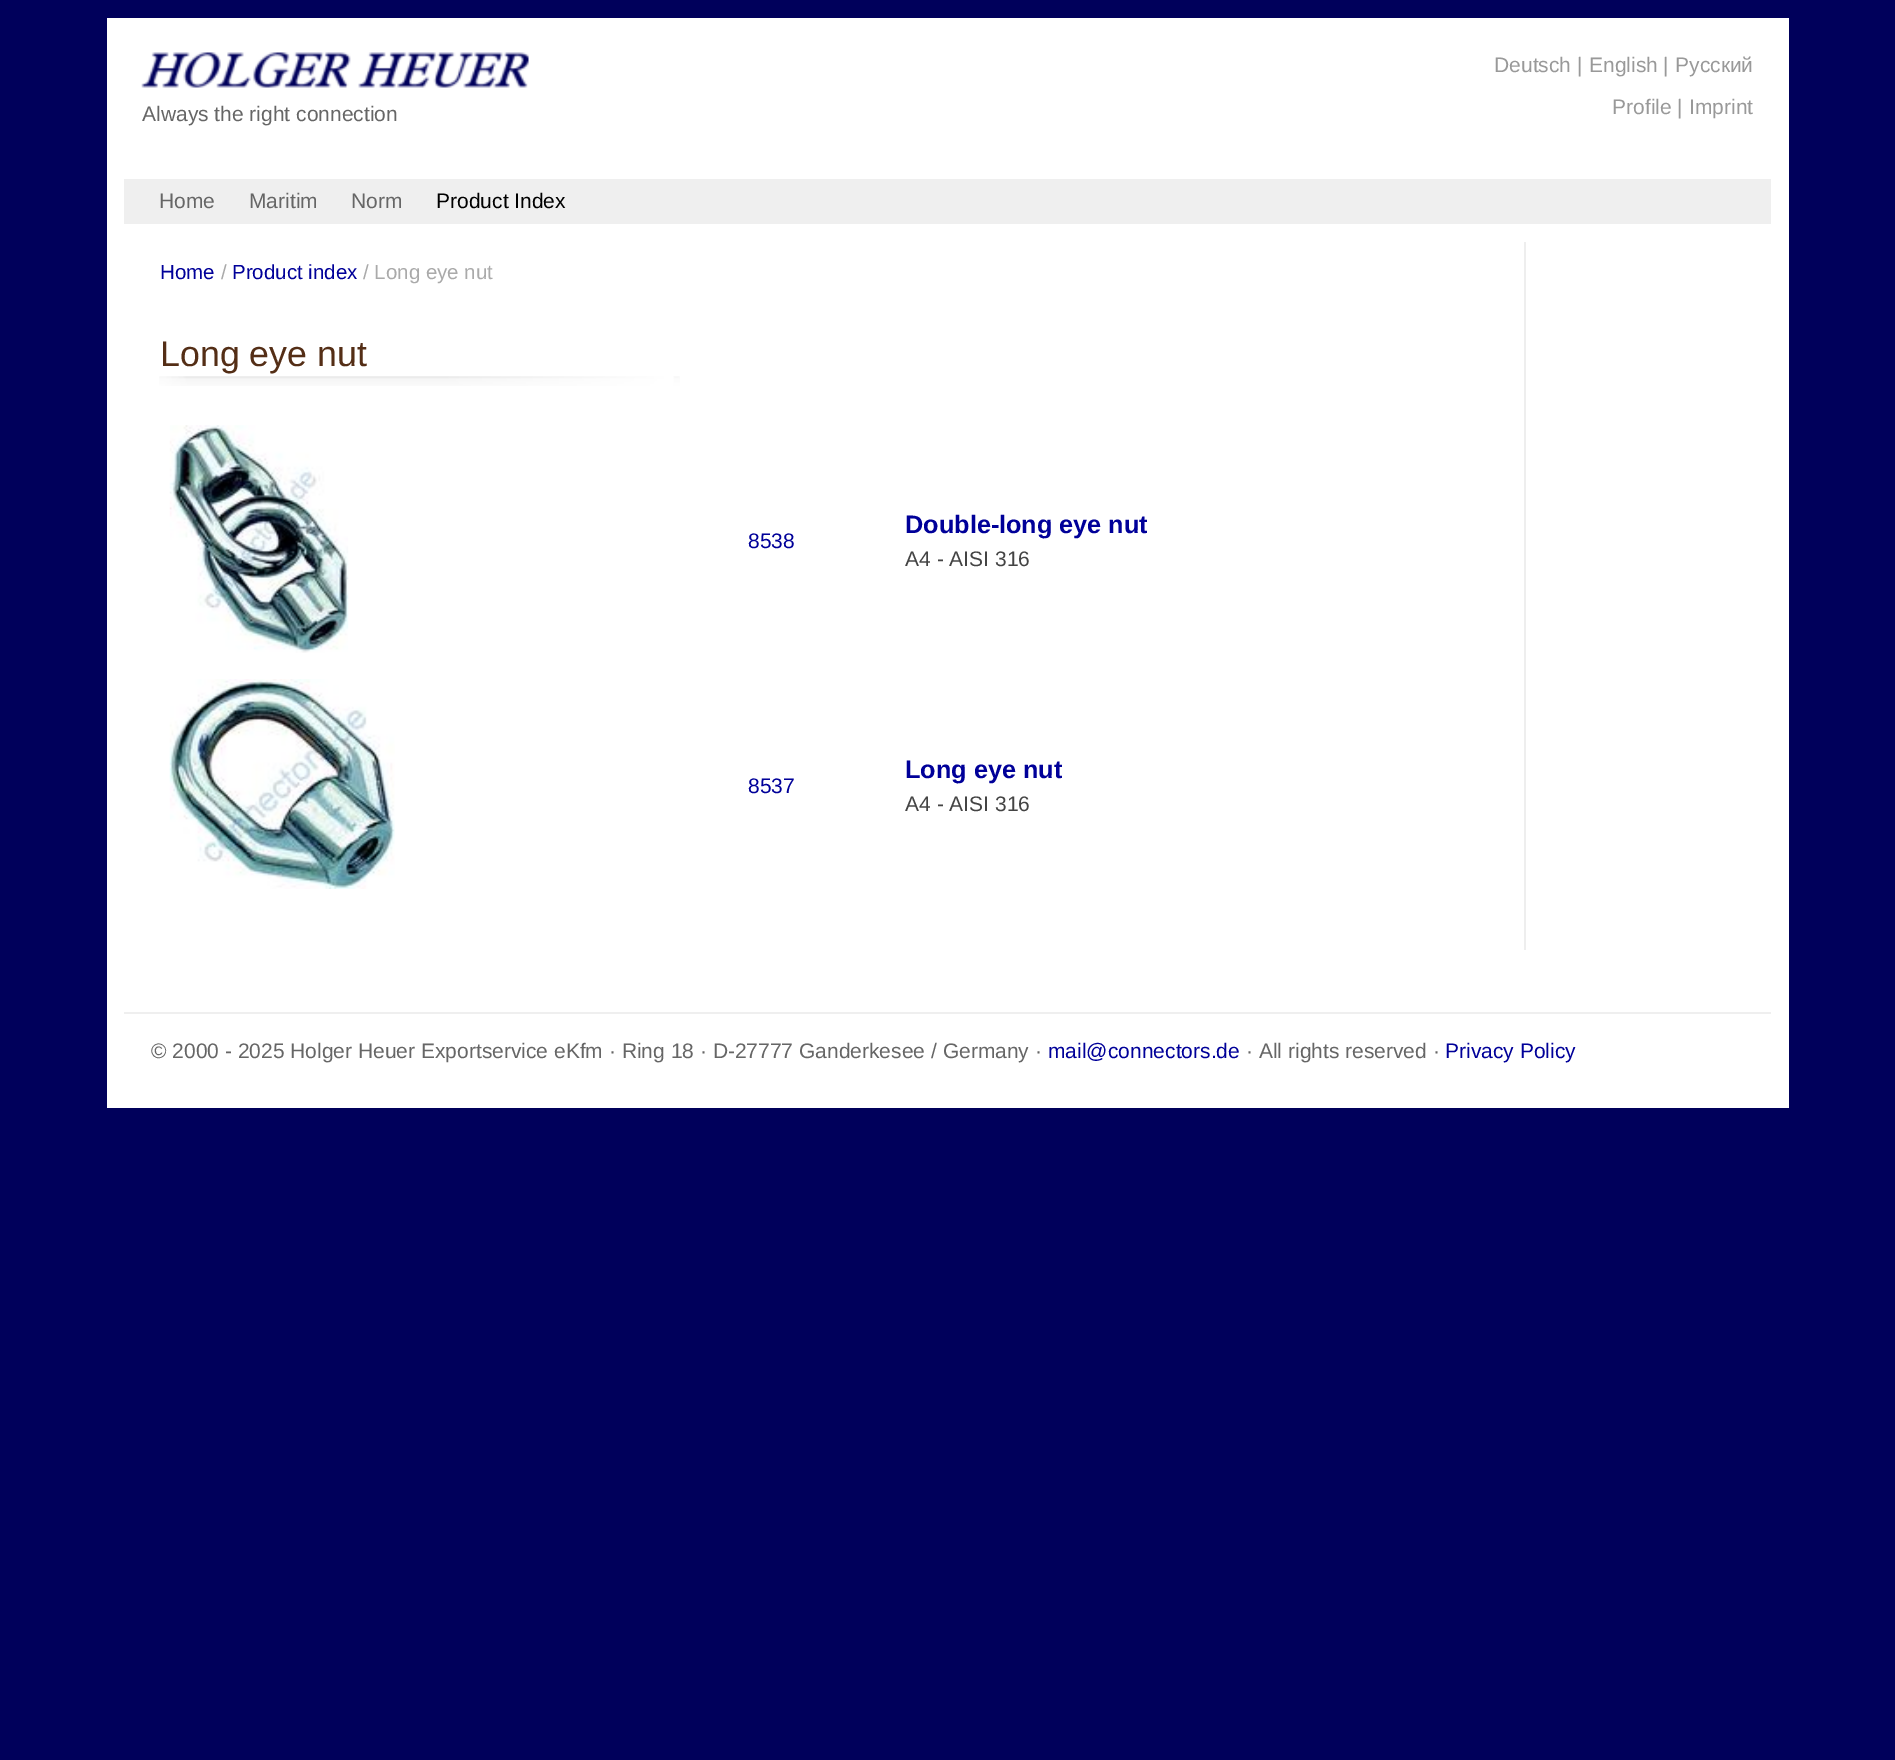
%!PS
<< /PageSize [1895 1760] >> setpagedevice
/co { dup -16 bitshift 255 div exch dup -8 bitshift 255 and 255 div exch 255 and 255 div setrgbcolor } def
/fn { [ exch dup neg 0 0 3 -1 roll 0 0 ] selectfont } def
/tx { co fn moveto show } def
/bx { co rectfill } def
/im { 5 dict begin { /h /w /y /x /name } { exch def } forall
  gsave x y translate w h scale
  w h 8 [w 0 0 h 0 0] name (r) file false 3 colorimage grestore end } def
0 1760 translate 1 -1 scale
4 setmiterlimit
0 0 1895 1760 16#00005B bx
107 18 1682 1090 16#FFFFFF bx
(media/1.raw) 141 52 388 36 im
124 179 1647 45 16#EFEFEF bx
(media/2.raw) 159 376 521 10 im
(media/3.raw) 169 425 180 228 im
(media/4.raw) 169 679 226 210 im
1524 242 2 708 16#EEEEEE bx
124 1012 1647 2 16#EFEFEF bx
(Always the right connection) 142 121 /LiberationSans-Regular 21 16#666666 tx
(Deutsch) 1494 72 /LiberationSans-Regular 21 16#999999 tx
(|) 1577 72 /LiberationSans-Regular 21 16#999999 tx
(English) 1589 72 /LiberationSans-Regular 21 16#999999 tx
(|) 1663 72 /LiberationSans-Regular 21 16#999999 tx
(Русский) 1675 72 /LiberationSans-Regular 21 16#999999 tx
(Profile) 1612 114 /LiberationSans-Regular 21 16#999999 tx
(|) 1677 114 /LiberationSans-Regular 21 16#999999 tx
(Imprint) 1689 114 /LiberationSans-Regular 21 16#999999 tx
(Home) 159 208 /LiberationSans-Regular 21 16#666666 tx
(Maritim) 249 208 /LiberationSans-Regular 21 16#666666 tx
(Norm) 351 208 /LiberationSans-Regular 21 16#666666 tx
(Product Index) 436 208 /LiberationSans-Regular 21 16#000000 tx
(Home) 160 279 /LiberationSans-Regular 20.5 16#000099 tx
(/) 221 279 /LiberationSans-Regular 20.5 16#AAAAAA tx
(Product index) 232 279 /LiberationSans-Regular 20.5 16#000099 tx
(/ Long eye nut) 363 279 /LiberationSans-Regular 20.5 16#AAAAAA tx
(Long eye nut) 160 366 /LiberationSans-Regular 35.75 16#542E16 tx
(8538) 748 548 /LiberationSans-Regular 21 16#000099 tx
(Double-long eye nut) 905 533 /LiberationSans-Bold 25.25 16#000099 tx
(A4 - AISI 316) 905 566 /LiberationSans-Regular 21 16#444444 tx
(8537) 748 793 /LiberationSans-Regular 21 16#000099 tx
(Long eye nut) 905 778 /LiberationSans-Bold 25.25 16#000099 tx
(A4 - AISI 316) 905 811 /LiberationSans-Regular 21 16#444444 tx
(© 2000 - 2025 Holger Heuer Exportservice eKfm · Ring 18 · D-27777 Ganderkesee / Germany ·) 151 1058 /LiberationSans-Regular 21 16#666666 tx
(mail@connectors.de) 1048 1058 /LiberationSans-Regular 21 16#000099 tx
(· All rights reserved ·) 1246 1058 /LiberationSans-Regular 21 16#666666 tx
(Privacy Policy) 1445 1058 /LiberationSans-Regular 21 16#000099 tx
showpage
